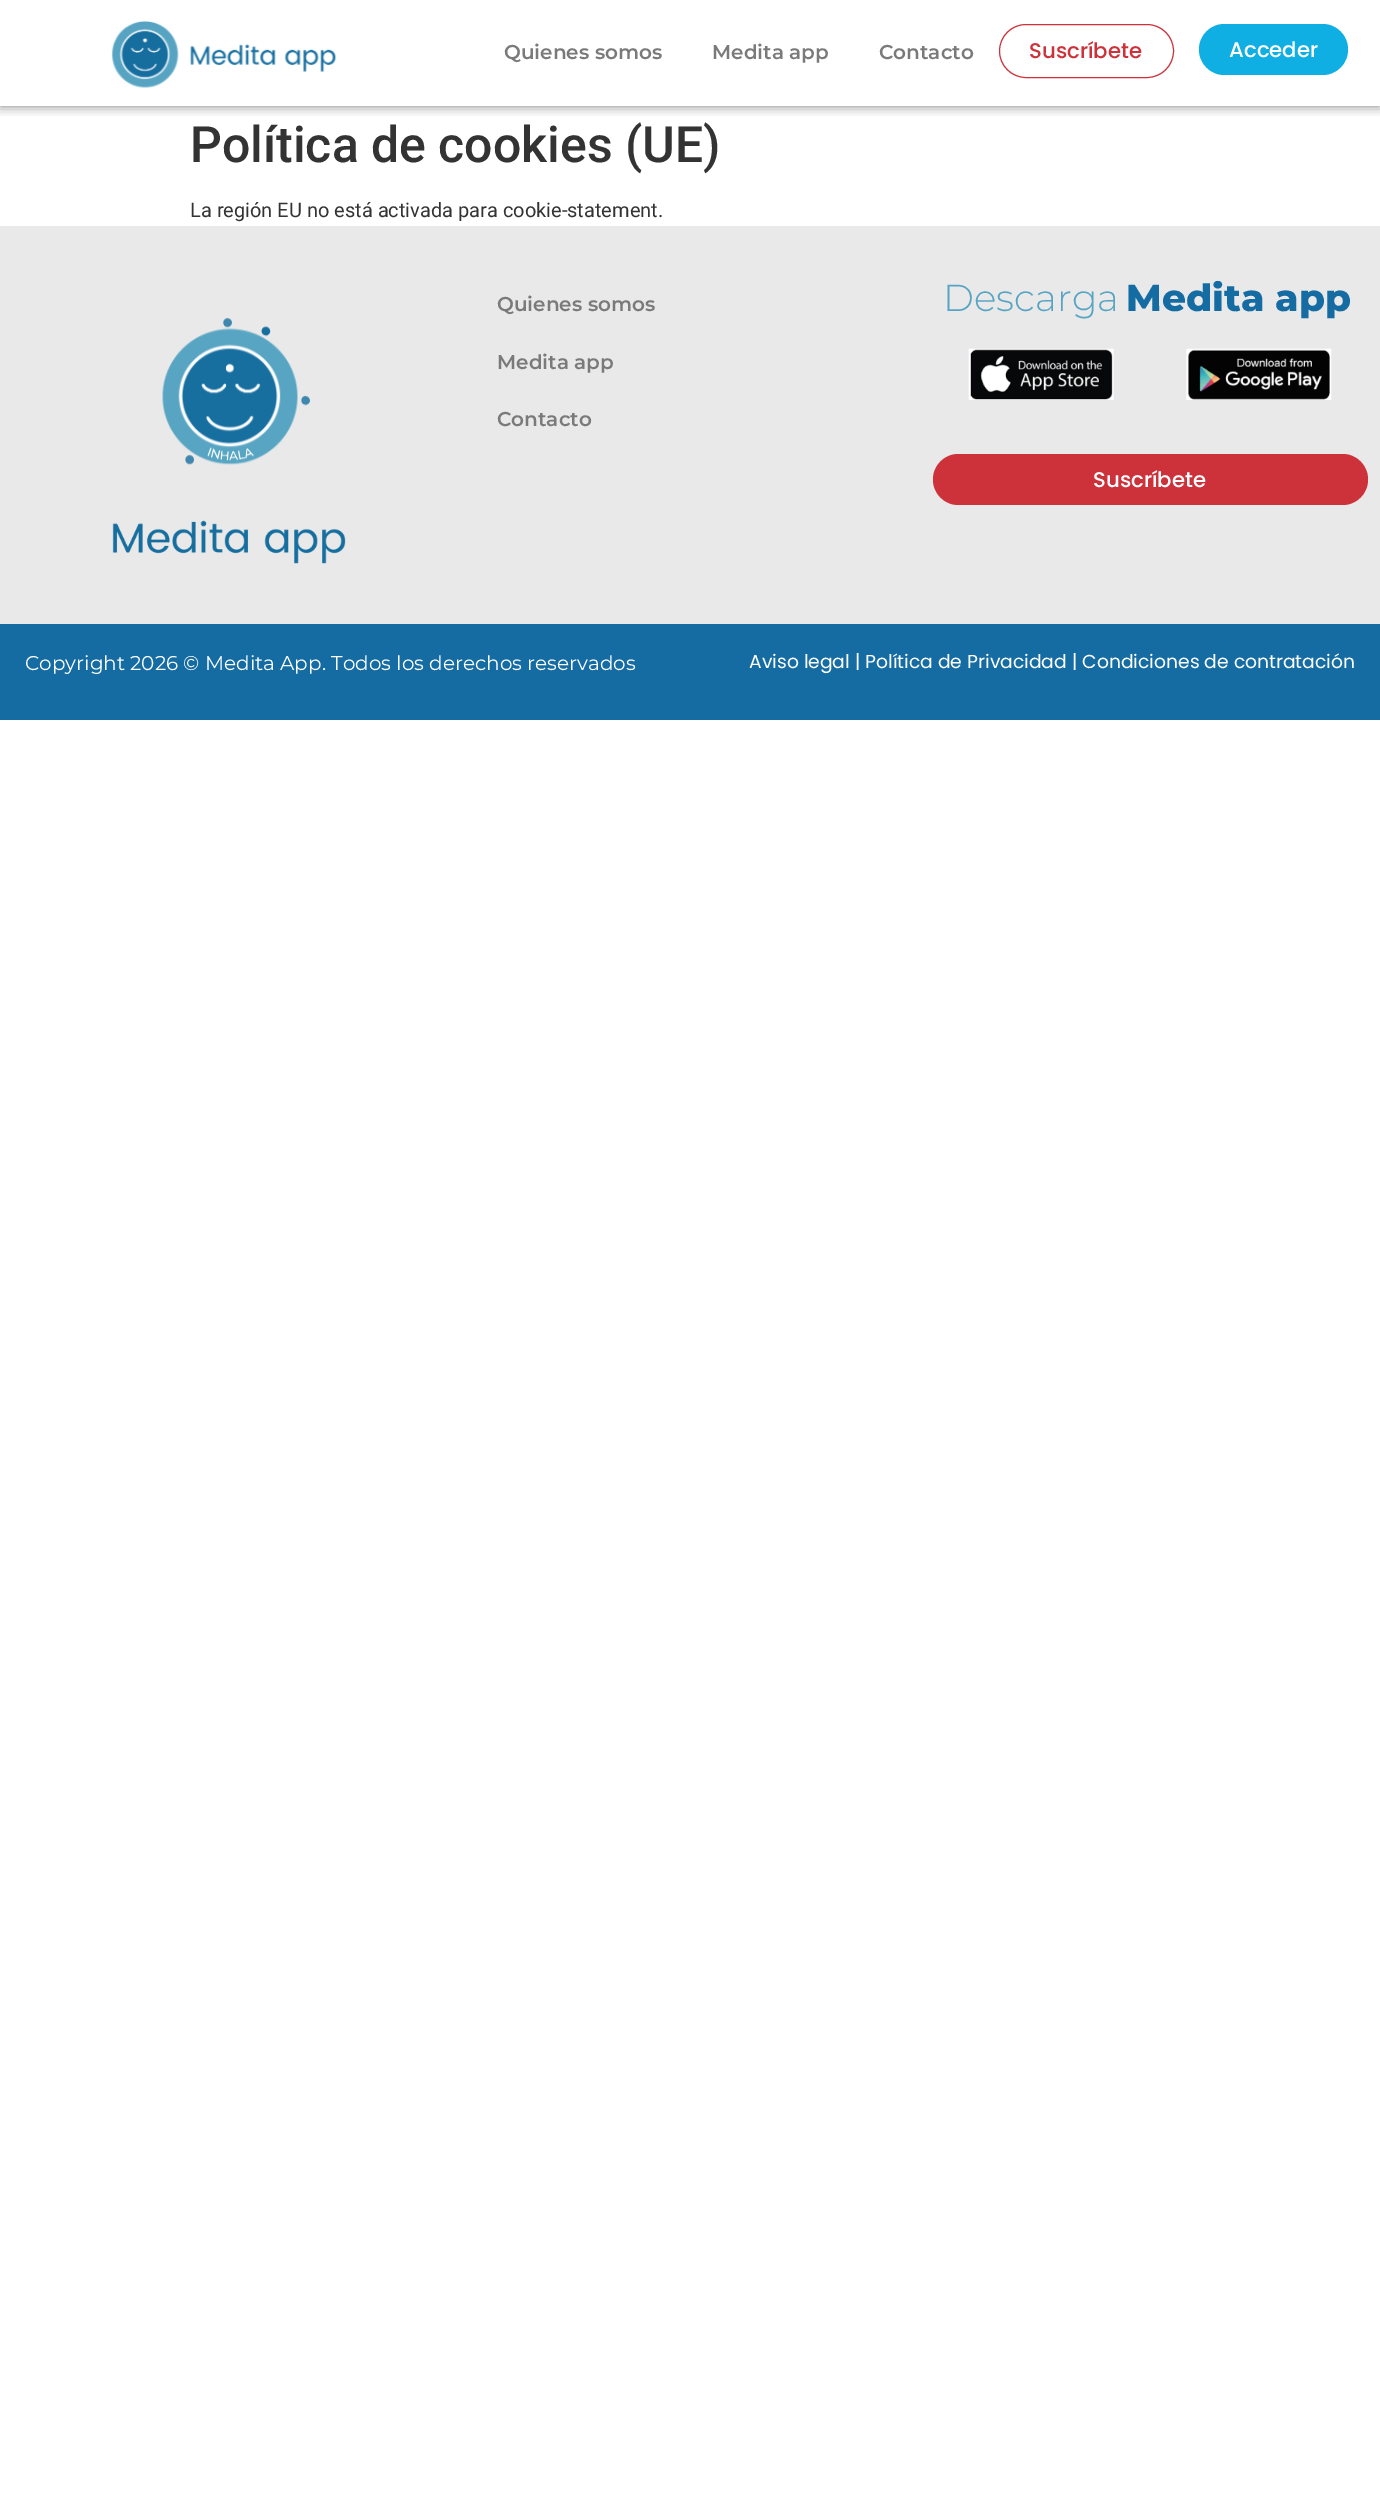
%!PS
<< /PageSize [1380 2501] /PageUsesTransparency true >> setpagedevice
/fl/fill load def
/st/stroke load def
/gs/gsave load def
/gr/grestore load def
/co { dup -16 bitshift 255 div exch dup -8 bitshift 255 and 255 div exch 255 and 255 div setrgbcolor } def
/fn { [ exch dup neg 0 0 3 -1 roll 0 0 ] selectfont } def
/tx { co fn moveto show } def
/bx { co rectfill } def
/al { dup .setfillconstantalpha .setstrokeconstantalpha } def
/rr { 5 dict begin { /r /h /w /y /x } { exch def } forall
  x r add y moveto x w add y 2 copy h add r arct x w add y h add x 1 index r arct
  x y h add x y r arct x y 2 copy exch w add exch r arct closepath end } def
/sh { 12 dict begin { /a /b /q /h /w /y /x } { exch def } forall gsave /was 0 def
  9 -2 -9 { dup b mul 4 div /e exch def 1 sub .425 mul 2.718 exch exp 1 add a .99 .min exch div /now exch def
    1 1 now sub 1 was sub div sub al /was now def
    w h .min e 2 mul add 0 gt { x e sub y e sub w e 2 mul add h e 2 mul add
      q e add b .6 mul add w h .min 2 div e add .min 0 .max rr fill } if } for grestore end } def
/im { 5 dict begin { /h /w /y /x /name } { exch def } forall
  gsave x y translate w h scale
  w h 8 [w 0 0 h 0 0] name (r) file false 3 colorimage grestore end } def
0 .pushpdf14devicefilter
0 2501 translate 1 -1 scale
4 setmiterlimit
0 0 1380 2501 16#FFFFFF bx
gs
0 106 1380 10 rectclip
16#000000 co
0 0 1380 106 0 6 .5 sh
gr
(media/1.raw) 111 21 225 67 im
16#CD323B co
999.5 24.5 174 53 26.5 rr st
16#10AFE3 co
1199 24 149 51 25.5 rr fl
0 226 1380 398 16#E9E9E9 bx
(media/2.raw) 162 318 148 147 im
(media/3.raw) 112 520 234 44 im
(media/4.raw) 968 348 146 52 im
(media/5.raw) 1186 348 146 52 im
16#CD323B co
933 454 435 51 25.5 rr fl
0 624 1380 96 16#146CA2 bx
(Quienes somos) 504 59 /Montserrat-SemiBold 20 16#7A7A7A tx
(Medita app) 712 59 /Montserrat-SemiBold 20 16#7A7A7A tx
(Contacto) 879 59 /Montserrat-SemiBold 20 16#7A7A7A tx
(Suscríbete) 1029 58 /Poppins-Medium 21.25 16#CD323B tx
(Acceder) 1229 57 /Poppins-Medium 21.25 16#FFFFFF tx
(Política de cookies \(UE\)) 190 162 /Roboto-Medium 50 16#333333 tx
(La región EU no está activada para cookie-statement.) 190 217 /Roboto-Regular 20 16#333333 tx
(Quienes somos) 497 311 /Montserrat-SemiBold 20 16#7A7A7A tx
(Medita app) 497 369 /Montserrat-SemiBold 20 16#7A7A7A tx
(Contacto) 497 426 /Montserrat-SemiBold 20 16#7A7A7A tx
(Descarga) 943 311 /Montserrat-Light 37.5 16#57A5C3 tx
(Medita app) 1126 311 /Montserrat-ExtraBold 37.5 16#146CA2 tx
(Suscríbete) 1093 487 /Poppins-Medium 21.25 16#FFFFFF tx
(Copyright 2026 © Medita App. Todos los derechos reservados) 25 670 /Montserrat-Regular 20 16#FFFFFF tx
(Aviso legal | Política de Privacidad | Condiciones de contratación) 749 668 /Poppins-Regular 18.75 16#FFFFFF tx
.poppdf14devicefilter showpage
